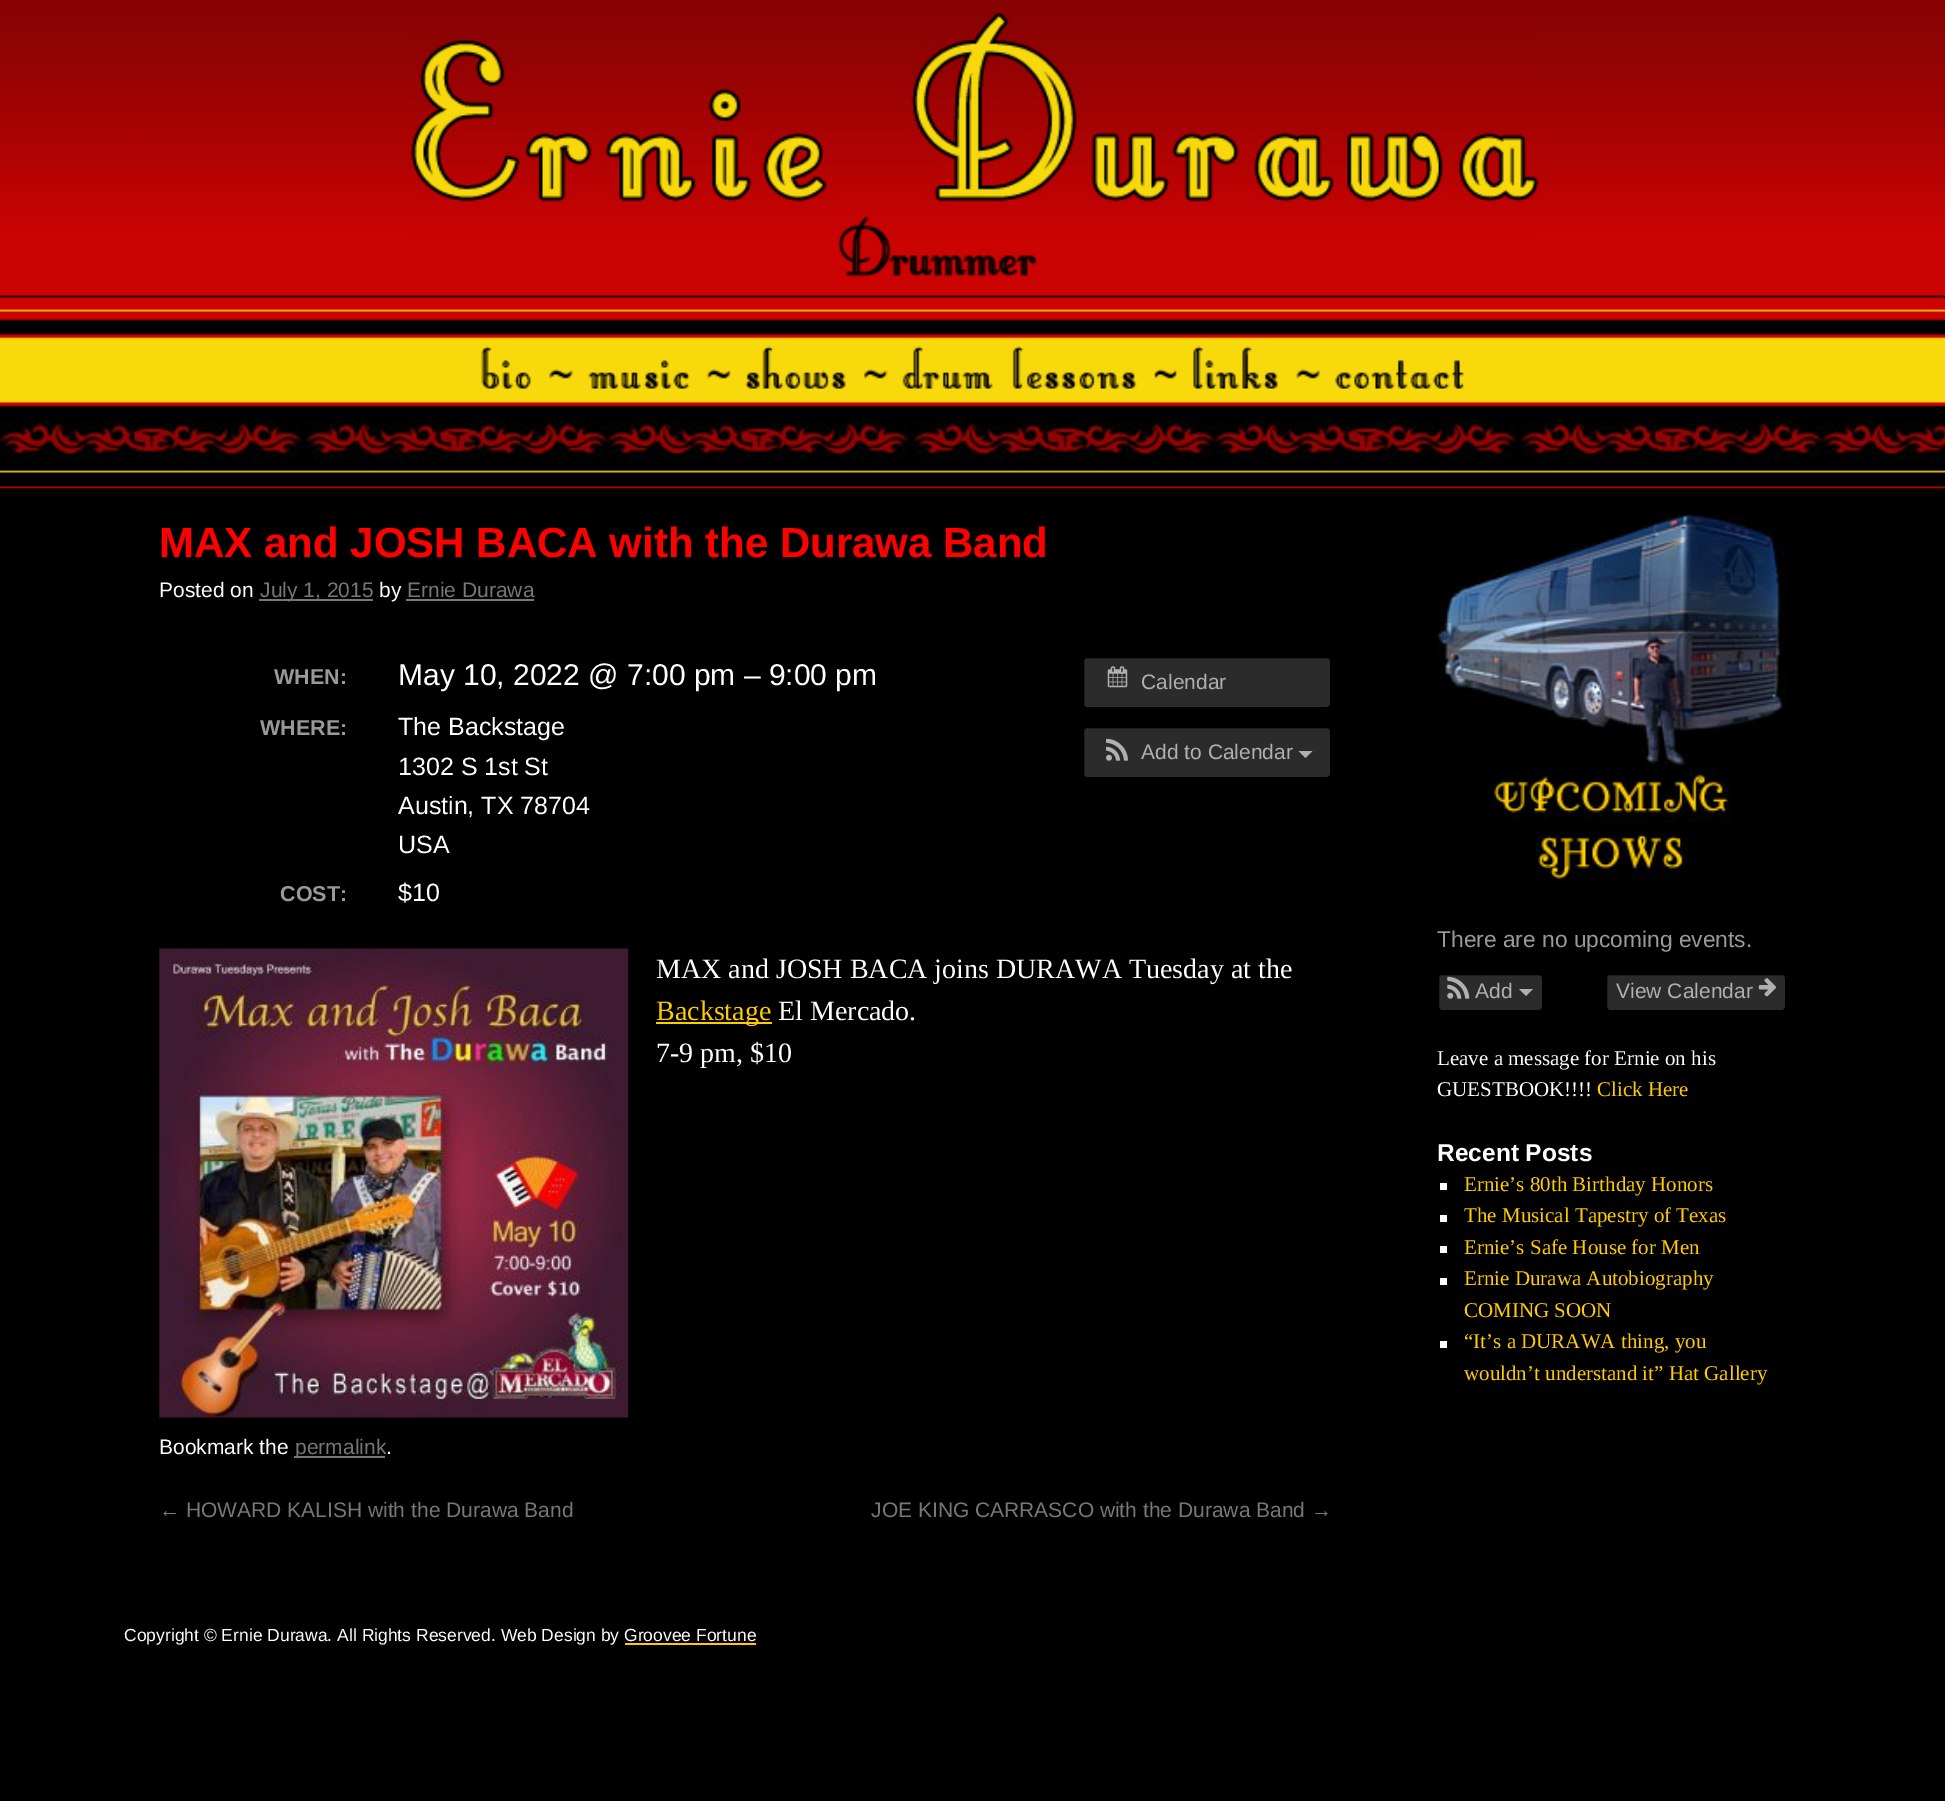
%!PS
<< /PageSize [1945 1801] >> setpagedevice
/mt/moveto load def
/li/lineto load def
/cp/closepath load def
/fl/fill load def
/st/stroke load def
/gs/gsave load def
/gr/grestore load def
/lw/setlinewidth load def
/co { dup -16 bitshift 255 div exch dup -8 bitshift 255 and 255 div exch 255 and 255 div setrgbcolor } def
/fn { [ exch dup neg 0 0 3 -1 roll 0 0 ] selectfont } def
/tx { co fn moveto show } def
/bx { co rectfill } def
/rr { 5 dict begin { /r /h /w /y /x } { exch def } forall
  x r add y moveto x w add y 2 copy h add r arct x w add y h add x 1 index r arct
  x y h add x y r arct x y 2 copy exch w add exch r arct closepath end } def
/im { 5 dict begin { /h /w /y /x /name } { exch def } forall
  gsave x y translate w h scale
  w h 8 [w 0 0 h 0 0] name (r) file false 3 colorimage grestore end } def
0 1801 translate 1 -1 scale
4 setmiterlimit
0 0 1945 1801 16#000000 bx
(media/1.raw) 0 0 1945 489 im
(media/2.raw) 410 12 1129 265 im
(media/3.raw) 480 346 51 43 im
(media/4.raw) 549 369 24 10 im
(media/5.raw) 587 360 103 29 im
(media/6.raw) 704 368 27 11 im
(media/7.raw) 745 346 101 44 im
(media/8.raw) 864 369 24 10 im
(media/9.raw) 902 346 235 43 im
(media/10.raw) 1154 368 23 11 im
(media/11.raw) 1193 346 85 43 im
(media/12.raw) 1296 369 24 10 im
(media/13.raw) 1334 360 130 29 im
259 599 114 2 16#777777 bx
406 599 128 2 16#777777 bx
16#2B2B2B co
1083 657 248 51 4 rr gs fl gr
16#000000 co
2 lw
st
(media/14.raw) 1107 666 21 22 im
16#2B2B2B co
1083 727 248 51 4 rr gs fl gr
16#000000 co
st
(media/15.raw) 1106 738 22 23 im
16#B0B0B0 co
1298.5 751 mt 1312.5 751 li 1305.5 758 li cp fl
(media/16.raw) 159 948 470 470 im
656 1022 116 2 16#FFCC00 bx
294 1456 91 2 16#777777 bx
(media/17.raw) 1437 514 350 365 im
16#2B2B2B co
1438 974 105 37 4 rr gs fl gr
16#000000 co
st
(media/18.raw) 1447 976 23 23 im
16#B0B0B0 co
1519 989 mt 1533 989 li 1526 996 li cp fl
16#2B2B2B co
1606 974 180 37 4 rr gs fl gr
16#000000 co
st
(media/19.raw) 1758 978 18 19 im
1440 1183 7 7 16#FFFFFF bx
1440 1215 7 7 16#FFFFFF bx
1440 1246 7 7 16#FFFFFF bx
1440 1278 7 7 16#FFFFFF bx
1440 1341 7 7 16#FFFFFF bx
(MAX and JOSH BACA with the Durawa Band) 159 557 /LiberationSans-Bold 42 16#FF0000 tx
(Posted on) 159 597 /LiberationSans-Regular 21 16#FFFFFF tx
(July 1, 2015) 260 597 /LiberationSans-Regular 21 16#777777 tx
(by) 379 597 /LiberationSans-Regular 21 16#FFFFFF tx
(Ernie Durawa) 407 597 /LiberationSans-Regular 21 16#777777 tx
(WHEN:) 274 684 /LiberationSans-Bold 21.5 16#999999 tx
(May 10, 2022 @ 7:00 pm – 9:00 pm) 398 685 /LiberationSans-Regular 30 16#FFFFFF tx
(WHERE:) 260 735 /LiberationSans-Bold 21.5 16#999999 tx
(The Backstage) 398 735 /LiberationSans-Regular 25 16#FFFFFF tx
(1302 S 1st St) 398 775 /LiberationSans-Regular 25 16#FFFFFF tx
(Austin, TX 78704) 398 814 /LiberationSans-Regular 25 16#FFFFFF tx
(USA) 398 853 /LiberationSans-Regular 25 16#FFFFFF tx
(COST:) 280 901 /LiberationSans-Bold 21.5 16#999999 tx
($10) 398 901 /LiberationSans-Regular 25 16#FFFFFF tx
(Calendar) 1141 689 /LiberationSans-Regular 21 16#B0B0B0 tx
(Add to Calendar) 1141 759 /LiberationSans-Regular 21 16#B0B0B0 tx
(MAX and JOSH BACA joins DURAWA Tuesday at the) 656 978 /LiberationSerif-Regular 28 16#FFFFFF tx
(Backstage) 656 1020 /LiberationSerif-Regular 28 16#FFCC00 tx
(El Mercado.) 778 1020 /LiberationSerif-Regular 28 16#FFFFFF tx
(7-9 pm, $10) 656 1062 /LiberationSerif-Regular 28 16#FFFFFF tx
(Bookmark the) 159 1454 /LiberationSans-Regular 21 16#FFFFFF tx
(permalink) 295 1454 /LiberationSans-Regular 21 16#777777 tx
(.) 386 1454 /LiberationSans-Regular 21 16#FFFFFF tx
(← HOWARD KALISH with the Durawa Band) 159 1517 /LiberationSans-Regular 21 16#777777 tx
(JOE KING CARRASCO with the Durawa Band →) 871 1517 /LiberationSans-Regular 21 16#777777 tx
(There are no upcoming events.) 1437 947 /LiberationSans-Regular 22.75 16#999999 tx
(Add) 1475 998 /LiberationSans-Regular 21 16#B0B0B0 tx
(View Calendar) 1616 998 /LiberationSans-Regular 21 16#B0B0B0 tx
(Leave a message for Ernie on his) 1437 1065 /LiberationSerif-Regular 21 16#FFFFFF tx
(GUESTBOOK!!!!) 1437 1096 /LiberationSerif-Regular 21 16#FFFFFF tx
(Click Here) 1597 1096 /LiberationSerif-Regular 21 16#FFCC00 tx
(Recent Posts) 1437 1161 /LiberationSans-Bold 24.5 16#FFFFFF tx
(Ernie’s 80th Birthday Honors) 1464 1191 /LiberationSerif-Regular 21 16#FFCC00 tx
(The Musical Tapestry of Texas) 1464 1222 /LiberationSerif-Regular 21 16#FFCC00 tx
(Ernie’s Safe House for Men) 1464 1254 /LiberationSerif-Regular 21 16#FFCC00 tx
(Ernie Durawa Autobiography) 1464 1285 /LiberationSerif-Regular 21 16#FFCC00 tx
(COMING SOON) 1464 1317 /LiberationSerif-Regular 21 16#FFCC00 tx
(“It’s a DURAWA thing, you) 1464 1348 /LiberationSerif-Regular 21 16#FFCC00 tx
(wouldn’t understand it” Hat Gallery) 1464 1380 /LiberationSerif-Regular 21 16#FFCC00 tx
(Copyright © Ernie Durawa. All Rights Reserved. Web Design by Groovee Fortune) 124 1641 /LiberationSans-Regular 17.5 16#FFFFFF tx
625 1643 131 2 16#FFCC00 bx
showpage
